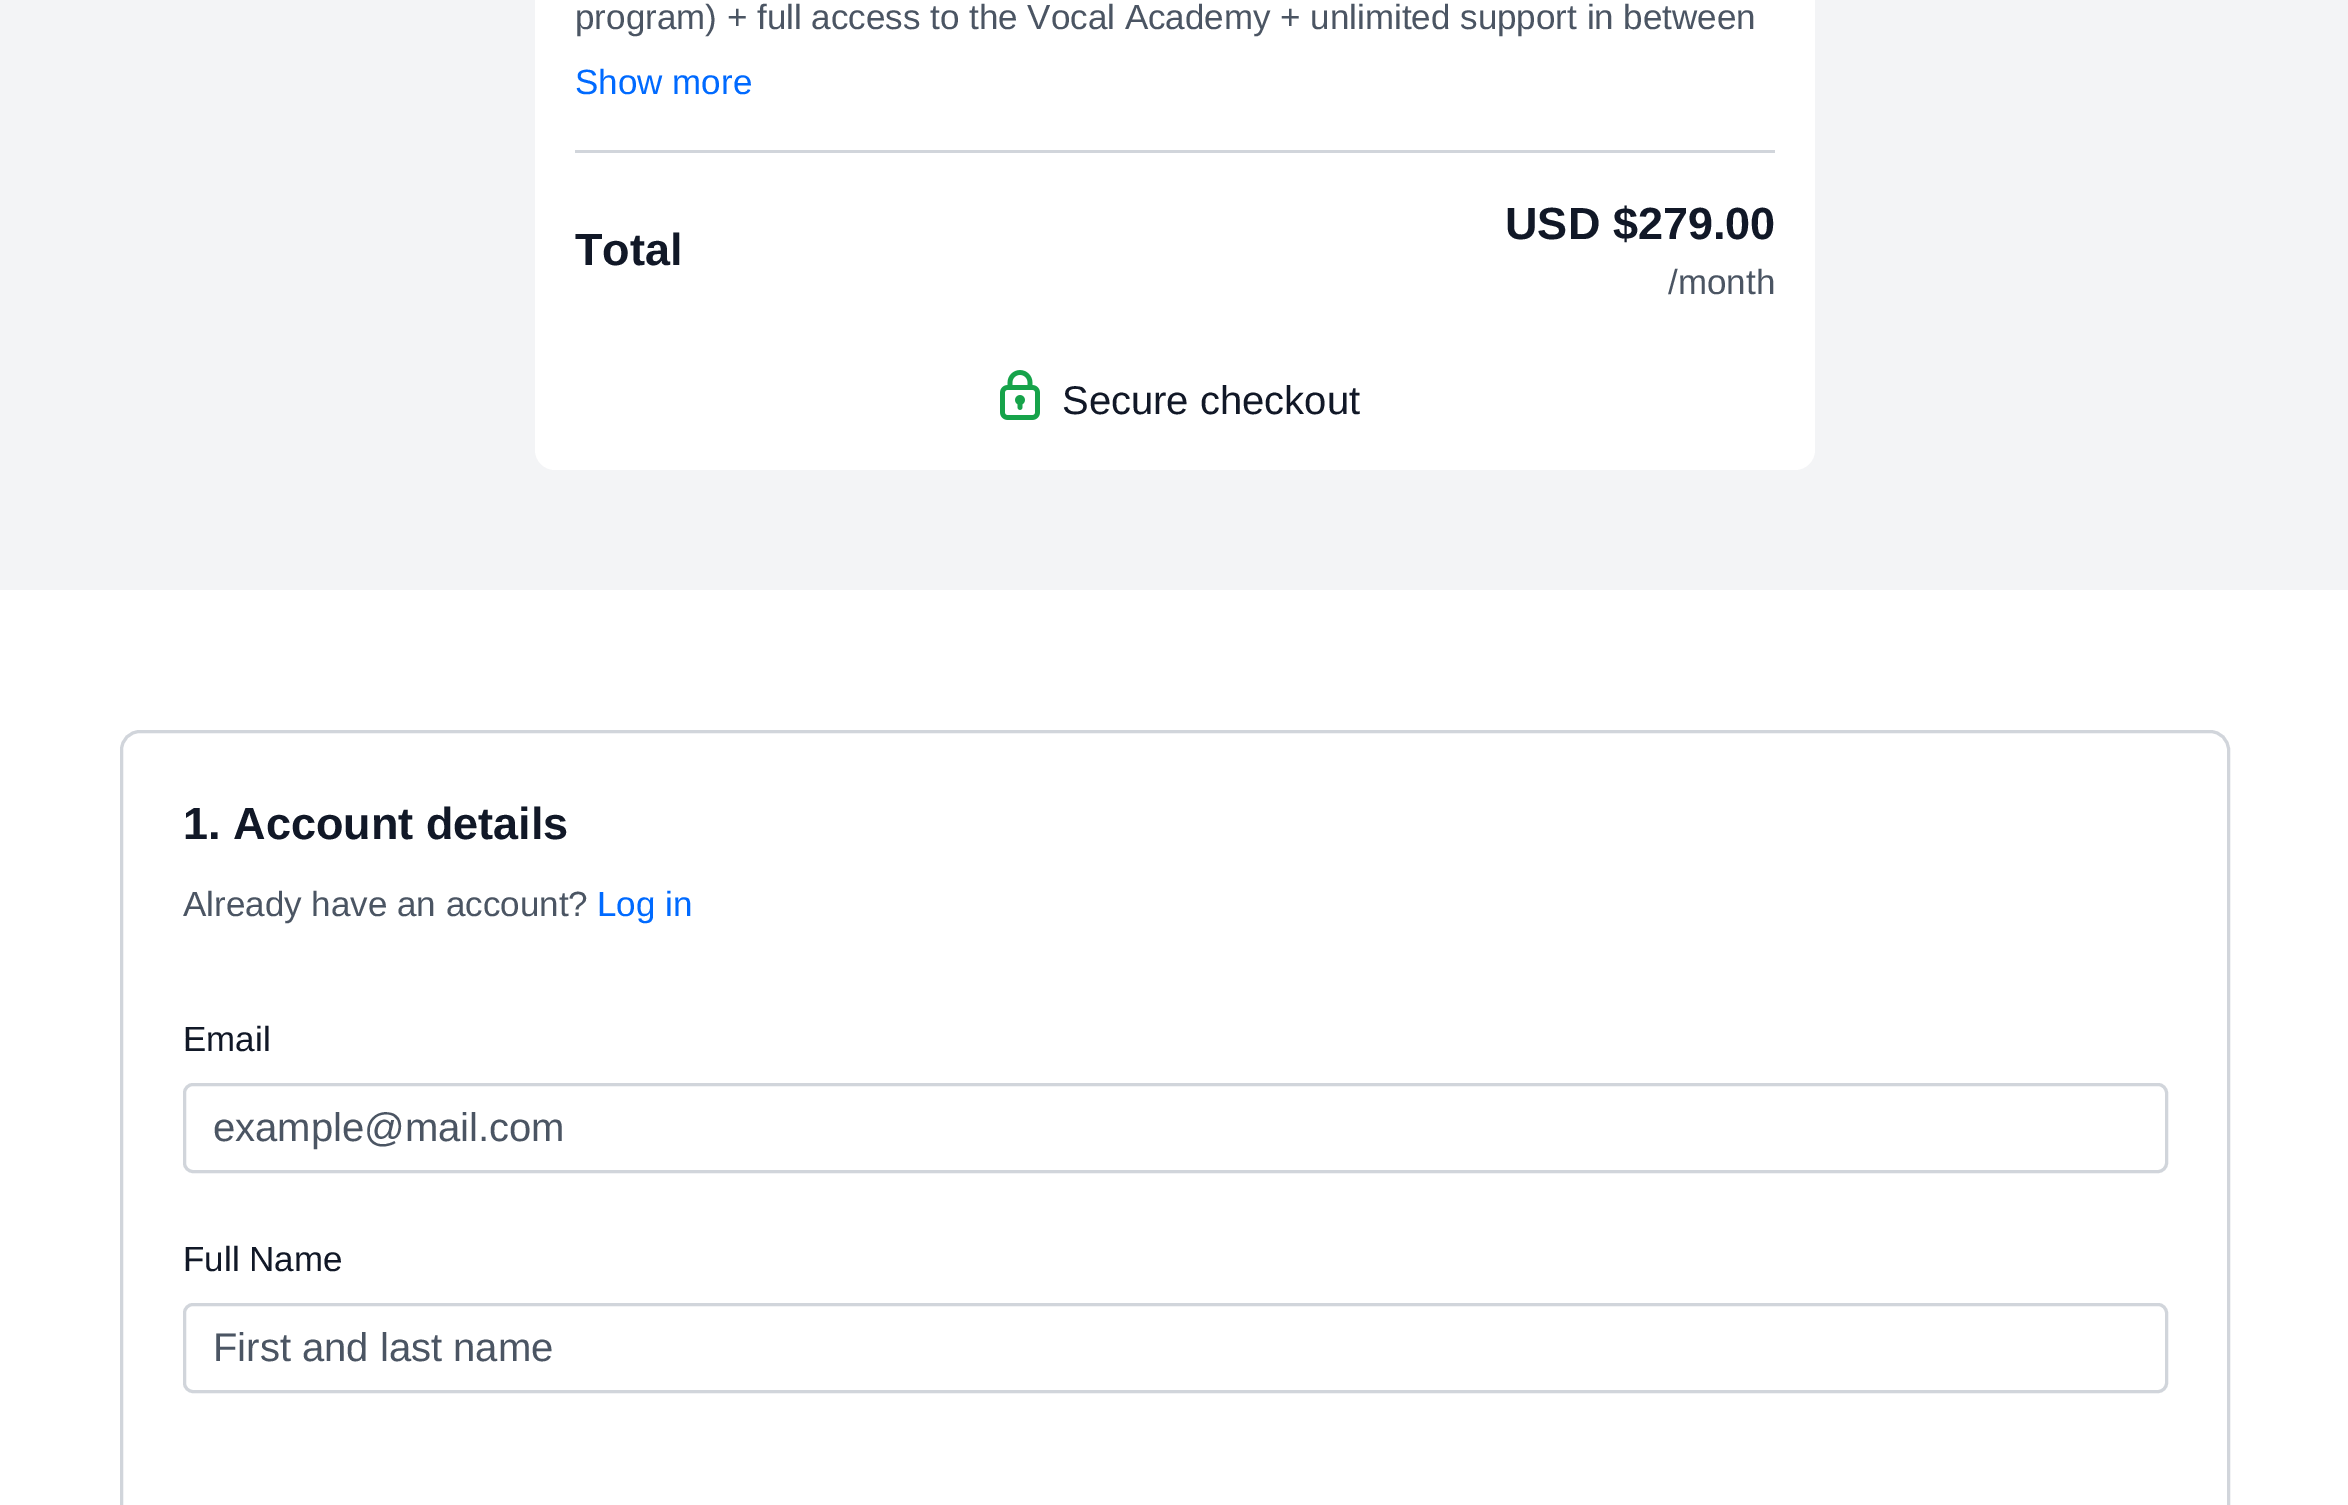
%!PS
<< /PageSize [2348 1505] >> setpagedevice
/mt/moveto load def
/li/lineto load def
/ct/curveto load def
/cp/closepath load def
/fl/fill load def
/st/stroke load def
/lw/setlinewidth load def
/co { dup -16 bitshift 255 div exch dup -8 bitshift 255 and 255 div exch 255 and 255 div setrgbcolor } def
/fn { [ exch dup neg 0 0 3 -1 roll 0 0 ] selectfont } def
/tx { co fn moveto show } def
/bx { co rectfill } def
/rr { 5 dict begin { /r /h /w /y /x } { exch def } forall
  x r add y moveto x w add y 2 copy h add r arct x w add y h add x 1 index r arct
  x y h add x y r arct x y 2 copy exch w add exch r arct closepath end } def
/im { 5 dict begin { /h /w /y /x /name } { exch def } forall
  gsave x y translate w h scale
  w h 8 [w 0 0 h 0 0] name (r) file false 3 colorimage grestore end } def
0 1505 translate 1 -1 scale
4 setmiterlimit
0 0 2348 1505 16#FFFFFF bx
0 0 2348 590 16#F3F4F6 bx
16#FFFFFF co
535 -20 mt 1815 -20 li 1815 450 li 1815 461 1806 470 1795 470 ct 555 470 li 544 470 535 461 535 450 ct cp fl
575 150 1200 3 16#D1D5DB bx
(media/1.raw) 1000 370 40 50 im
3 lw
121.5 731.5 2107 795 18.5 rr st
184.5 1084.5 1982 87 8.5 rr st
184.5 1304.5 1982 87 8.5 rr st
(program\) + full access to the Vocal Academy + unlimited support in between) 575 29 /LiberationSans-Regular 35 16#4B5563 tx
(Show more) 575 94 /LiberationSans-Regular 35 16#006AFF tx
(Total) 575 265 /LiberationSans-Bold 45 16#111827 tx
(USD $279.00) 1505 239 /LiberationSans-Bold 45 16#111827 tx
(/month) 1668 294 /LiberationSans-Regular 35 16#4B5563 tx
(Secure checkout) 1062 414 /LiberationSans-Regular 40 16#111827 tx
(1. Account details) 183 839 /LiberationSans-Bold 45 16#111827 tx
(Already have an account?) 183 916 /LiberationSans-Regular 35 16#4B5563 tx
(Log in) 597 916 /LiberationSans-Regular 35 16#006AFF tx
(Email) 183 1051 /LiberationSans-Regular 35 16#111827 tx
(example@mail.com) 213 1141 /LiberationSans-Regular 40 16#4B5563 tx
(Full Name) 183 1271 /LiberationSans-Regular 35 16#111827 tx
(First and last name) 213 1361 /LiberationSans-Regular 40 16#4B5563 tx
showpage
